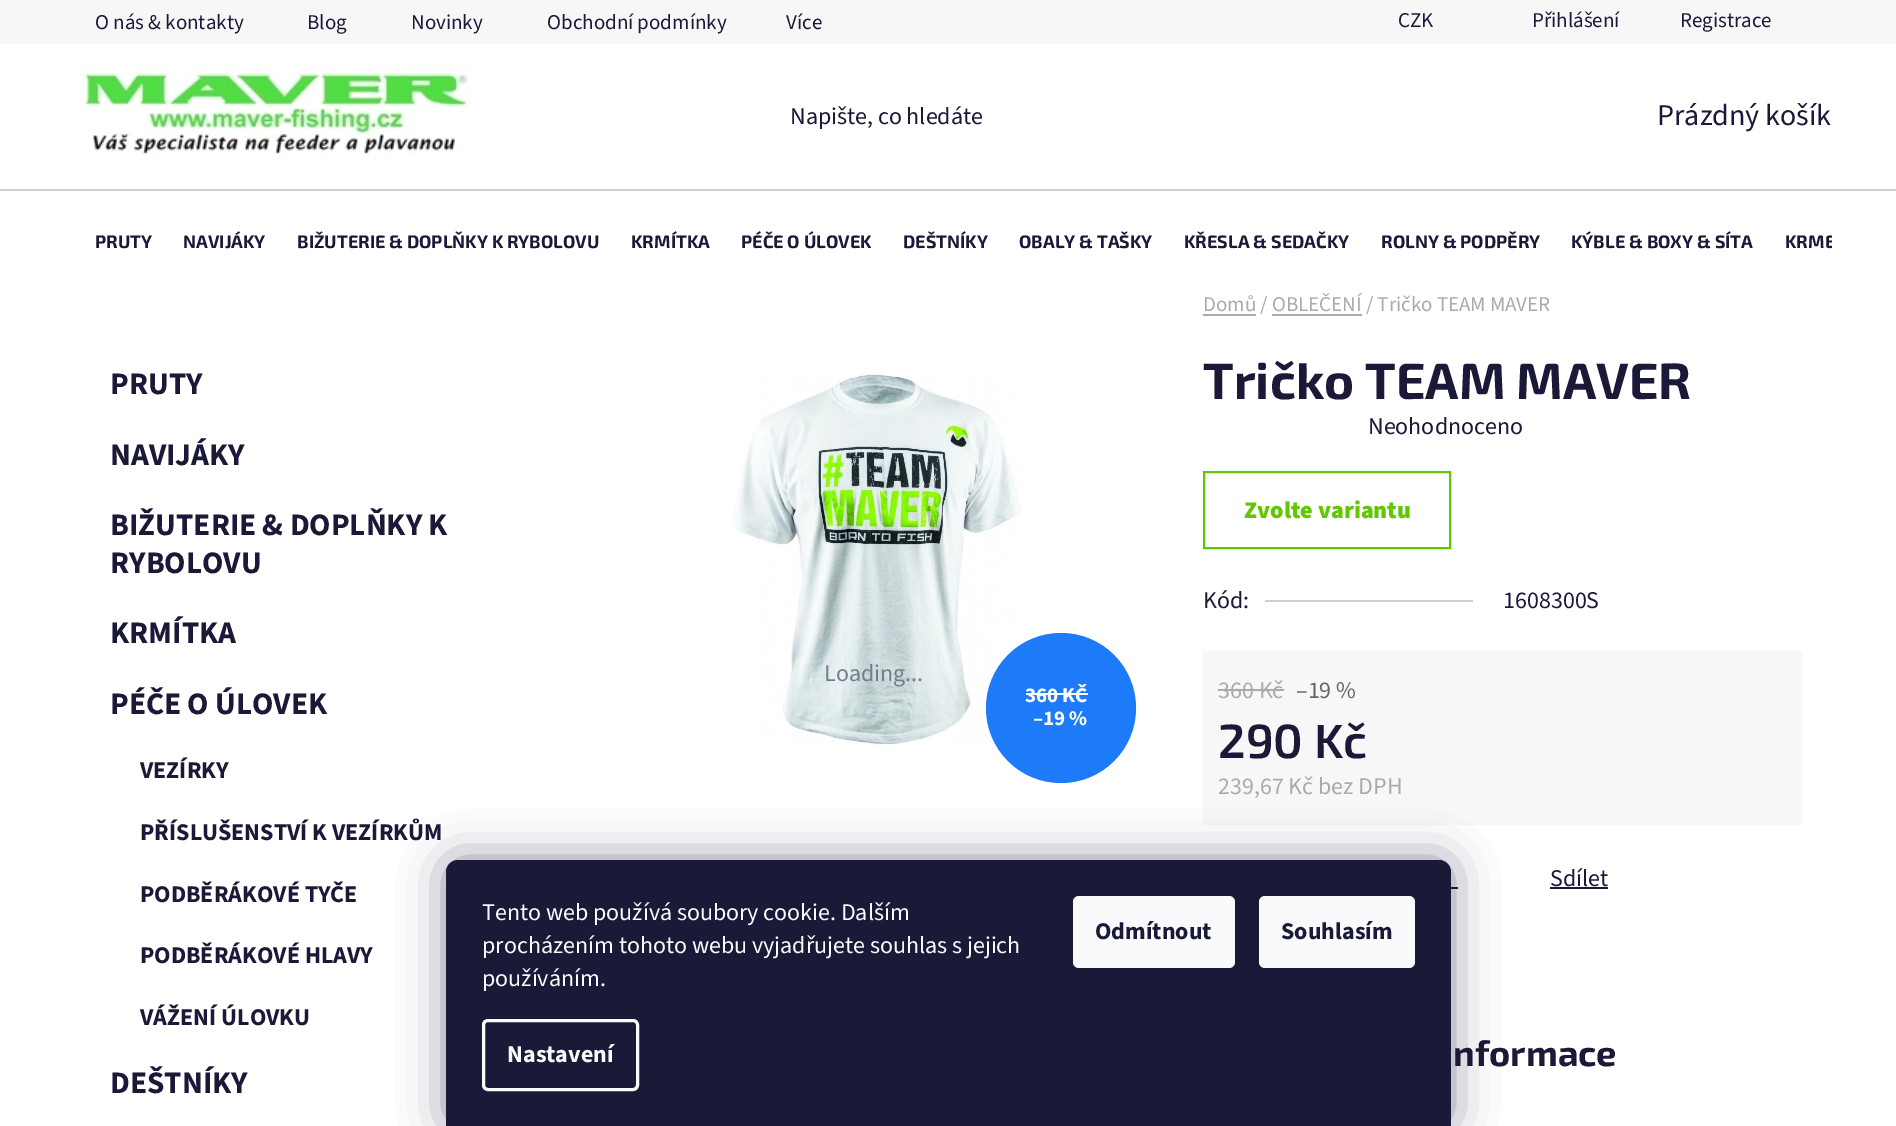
%!PS
<< /PageSize [1896 1126] /PageUsesTransparency true >> setpagedevice
/mt/moveto load def
/li/lineto load def
/ct/curveto load def
/cp/closepath load def
/fl/fill load def
/st/stroke load def
/gs/gsave load def
/gr/grestore load def
/lw/setlinewidth load def
/co { dup -16 bitshift 255 div exch dup -8 bitshift 255 and 255 div exch 255 and 255 div setrgbcolor } def
/fn { [ exch dup neg 0 0 3 -1 roll 0 0 ] selectfont } def
/tx { co fn moveto show } def
/bx { co rectfill } def
/al { dup .setfillconstantalpha .setstrokeconstantalpha } def
/ci { newpath 0 360 arc closepath } def
/rr { 5 dict begin { /r /h /w /y /x } { exch def } forall
  x r add y moveto x w add y 2 copy h add r arct x w add y h add x 1 index r arct
  x y h add x y r arct x y 2 copy exch w add exch r arct closepath end } def
/sh { 12 dict begin { /a /b /q /h /w /y /x } { exch def } forall gsave /was 0 def
  9 -2 -9 { dup b mul 4 div /e exch def 1 sub .425 mul 2.718 exch exp 1 add a .99 .min exch div /now exch def
    1 1 now sub 1 was sub div sub al /was now def
    w h .min e 2 mul add 0 gt { x e sub y e sub w e 2 mul add h e 2 mul add
      q e add b .6 mul add w h .min 2 div e add .min 0 .max rr fill } if } for grestore end } def
/im { 5 dict begin { /h /w /y /x /name } { exch def } forall
  gsave x y translate w h scale
  w h 8 [w 0 0 h 0 0] name (r) file false 3 colorimage grestore end } def
0 .pushpdf14devicefilter
0 1126 translate 1 -1 scale
4 setmiterlimit
0 0 1896 1126 16#FFFFFF bx
0 0 1896 44 16#F7F7F7 bx
(media/1.raw) 76 66 394 88 im
0 189 1896 2 16#CFCFCF bx
1203 314 53 2 16#AAAAAA bx
1272 314 90 2 16#AAAAAA bx
(media/2.raw) 731 374 291 372 im
16#1D7AF8 co
1061 708 75 ci fl
1026 693 62 2 16#FFFFFF bx
16#60C700 co
2 lw
1204 472 246 76 rectstroke
1265 600 208 2 16#CFCFCF bx
1203 651 599 174 16#F7F7F7 bx
1218 689 66 2 16#AAAAAA bx
1550 887 58 2 16#1A1937 bx
1451 887 7 2 16#1A1937 bx
16#1B1939 co
446 860 1005 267 12 22.5 .5 sh
16#1A1937 co
458 860 mt 1439 860 li 1445.5 860 1451 865.5 1451 872 ct 1451 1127 li 446 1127 li 446 872 li 446 865.5 451.5 860 458 860 ct cp fl
16#F8FAFB co
3 lw
483.5 1020.5 154 69 4.5 rr st
1073 896 162 72 6 rr fl
1259 896 156 72 6 rr fl
(O nás & kontakty) 95 29 /SourceSans3-Regular 21 16#1A1937 tx
(Blog) 307 29 /SourceSans3-Regular 21 16#1A1937 tx
(Novinky) 411 29 /SourceSans3-Regular 21 16#1A1937 tx
(Obchodní podmínky) 547 29 /SourceSans3-Regular 21 16#1A1937 tx
(Více) 786 29 /SourceSans3-Regular 21 16#1A1937 tx
(CZK) 1398 27 /SourceSans3-Regular 21 16#1A1937 tx
(Přihlášení) 1532 27 /SourceSans3-Regular 21 16#1A1937 tx
(Registrace) 1680 27 /SourceSans3-Regular 21 16#1A1937 tx
(Napište, co hledáte) 790 124 /SourceSans3-Regular 24 16#1A1937 tx
(Prázdný košík) 1657 125 /SourceSans3-Regular 30 16#1A1937 tx
(PRUTY) 95 248 /Exo2-Bold 18 16#1A1937 tx
(NAVIJÁKY) 183 248 /Exo2-Bold 18 16#1A1937 tx
(BIŽUTERIE & DOPLŇKY K RYBOLOVU) 297 248 /Exo2-Bold 18 16#1A1937 tx
(KRMÍTKA) 631 248 /Exo2-Bold 18 16#1A1937 tx
(PÉČE O ÚLOVEK) 741 248 /Exo2-Bold 18 16#1A1937 tx
(DEŠTNÍKY) 903 248 /Exo2-Bold 18 16#1A1937 tx
(OBALY & TAŠKY) 1019 248 /Exo2-Bold 18 16#1A1937 tx
(KŘESLA & SEDAČKY) 1184 248 /Exo2-Bold 18 16#1A1937 tx
(ROLNY & PODPĚRY) 1381 248 /Exo2-Bold 18 16#1A1937 tx
(KÝBLE & BOXY & SÍTA) 1571 248 /Exo2-Bold 18 16#1A1937 tx
gs
65 191 1767 102 rectclip
(KRME) 1785 248 /Exo2-Bold 18 16#1A1937 tx
gr
(Domů / OBLEČENÍ / Tričko TEAM MAVER) 1203 311 /SourceSans3-Regular 21 16#AAAAAA tx
(PRUTY) 110 394 /SourceSans3-Bold 31.25 16#1A1937 tx
(NAVIJÁKY) 110 465 /SourceSans3-Bold 31.25 16#1A1937 tx
(BIŽUTERIE & DOPLŇKY K) 110 535 /SourceSans3-Bold 31.25 16#1A1937 tx
(RYBOLOVU) 110 573 /SourceSans3-Bold 31.25 16#1A1937 tx
(KRMÍTKA) 110 643 /SourceSans3-Bold 31.25 16#1A1937 tx
(PÉČE O ÚLOVEK) 110 714 /SourceSans3-Bold 31.25 16#1A1937 tx
(VEZÍRKY) 140 778 /SourceSans3-Bold 24 16#1A1937 tx
(PŘÍSLUŠENSTVÍ K VEZÍRKŮM) 140 840 /SourceSans3-Bold 24 16#1A1937 tx
(PODBĚRÁKOVÉ TYČE) 140 902 /SourceSans3-Bold 24 16#1A1937 tx
(PODBĚRÁKOVÉ HLAVY) 140 963 /SourceSans3-Bold 24 16#1A1937 tx
(VÁŽENÍ ÚLOVKU) 140 1025 /SourceSans3-Bold 24 16#1A1937 tx
(DEŠTNÍKY) 110 1093 /SourceSans3-Bold 31.25 16#1A1937 tx
(Loading...) 824 681 /SourceSans3-Regular 24 16#767C8C tx
(360 KČ) 1025 702 /SourceSans3-Bold 21 16#FFFFFF tx
(–19 %) 1033 725 /SourceSans3-Bold 21 16#FFFFFF tx
(Tričko TEAM MAVER) 1203 399 /Exo2-Bold 51 16#1A1937 tx
(Neohodnoceno) 1368 434 /SourceSans3-Regular 24 16#1A1937 tx
(Zvolte variantu) 1244 518 /SourceSans3-Black 24 16#60C700 tx
(Kód:) 1203 608 /SourceSans3-Regular 24 16#1A1937 tx
(1608300S) 1503 608 /SourceSans3-Regular 24 16#1A1937 tx
(360 Kč) 1218 698 /SourceSans3-Regular 24 16#AAAAAA tx
(–19 %) 1296 698 /SourceSans3-Regular 24 16#666666 tx
(290 Kč) 1218 758 /Exo2-SemiBold 48 16#1A1937 tx
(239,67 Kč bez DPH) 1218 794 /SourceSans3-Regular 24 16#AAAAAA tx
(Sdílet) 1550 886 /SourceSans3-Regular 24 16#1A1937 tx
(nformace) 1453 1066 /Exo2-Bold 36 16#1A1937 tx
(Tento web používá soubory cookie. Dalším) 482 920 /SourceSans3-Regular 24 16#F8FAFB tx
(procházením tohoto webu vyjadřujete souhlas s jejich) 482 953 /SourceSans3-Regular 24 16#F8FAFB tx
(používáním.) 482 986 /SourceSans3-Regular 24 16#F8FAFB tx
(Nastavení) 507 1062 /SourceSans3-Bold 24 16#F8FAFB tx
(Odmítnout) 1095 939 /SourceSans3-Bold 24 16#1A1937 tx
(Souhlasím) 1281 939 /SourceSans3-Bold 24 16#1A1937 tx
.poppdf14devicefilter showpage
